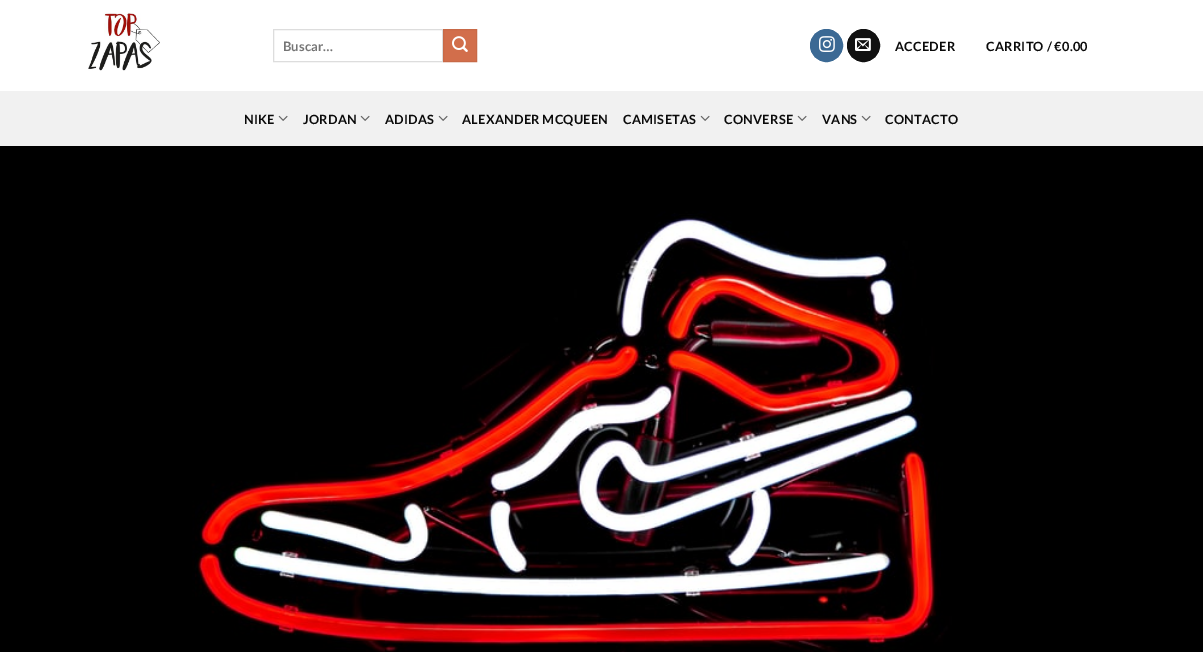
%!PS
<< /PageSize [1203 652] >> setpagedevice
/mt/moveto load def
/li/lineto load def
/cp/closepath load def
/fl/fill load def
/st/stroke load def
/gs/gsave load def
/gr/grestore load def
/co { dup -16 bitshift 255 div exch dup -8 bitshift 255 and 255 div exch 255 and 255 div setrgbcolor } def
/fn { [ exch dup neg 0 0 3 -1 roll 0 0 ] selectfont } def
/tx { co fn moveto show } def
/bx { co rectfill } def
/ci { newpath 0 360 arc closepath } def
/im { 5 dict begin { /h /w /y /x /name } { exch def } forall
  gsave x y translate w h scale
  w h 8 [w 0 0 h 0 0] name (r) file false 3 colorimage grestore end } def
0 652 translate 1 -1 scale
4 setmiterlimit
0 0 1203 652 16#FFFFFF bx
(media/1.raw) 88 12 72 59 im
16#DDDDDD co
273.5 29.5 169 32 rectstroke
16#D26E4B co
443.5 29.5 mt 476.5 29.5 li 476.5 61.5 li 443.5 61.5 li cp gs fl gr
16#C86947 co
st
(media/2.raw) 452 36 16 16 im
16#3B6994 co
826.5 45.5 16 ci gs fl gr
st
(media/3.raw) 819 36 16 16 im
16#111111 co
863.5 45.5 16 ci gs fl gr
st
(media/4.raw) 855 38 16 13 im
0 91 1203 55 16#F1F1F1 bx
(media/5.raw) 278 115 10 6 im
(media/5.raw) 360 115 10 6 im
(media/5.raw) 438 115 10 6 im
(media/5.raw) 700 115 10 6 im
(media/5.raw) 797 115 10 6 im
(media/5.raw) 861 115 10 6 im
(media/6.raw) 0 146 1203 506 im
(Buscar…) 283 51 /Lato-Bold 13 16#757575 tx
/Lato-Bold 12.75 fn
16#0A0A0A co
895 51 mt .25 0 (ACCEDER) ashow
986 51 mt .25 0 (CARRITO / €0.00) ashow
244 124 mt .25 0 (NIKE) ashow
303 124 mt .25 0 (JORDAN) ashow
385 124 mt .25 0 (ADIDAS) ashow
462 124 mt .25 0 (ALEXANDER MCQUEEN) ashow
623 124 mt .25 0 (CAMISETAS) ashow
724 124 mt .25 0 (CONVERSE) ashow
822 124 mt .25 0 (VANS) ashow
885 124 mt .25 0 (CONTACTO) ashow
showpage
